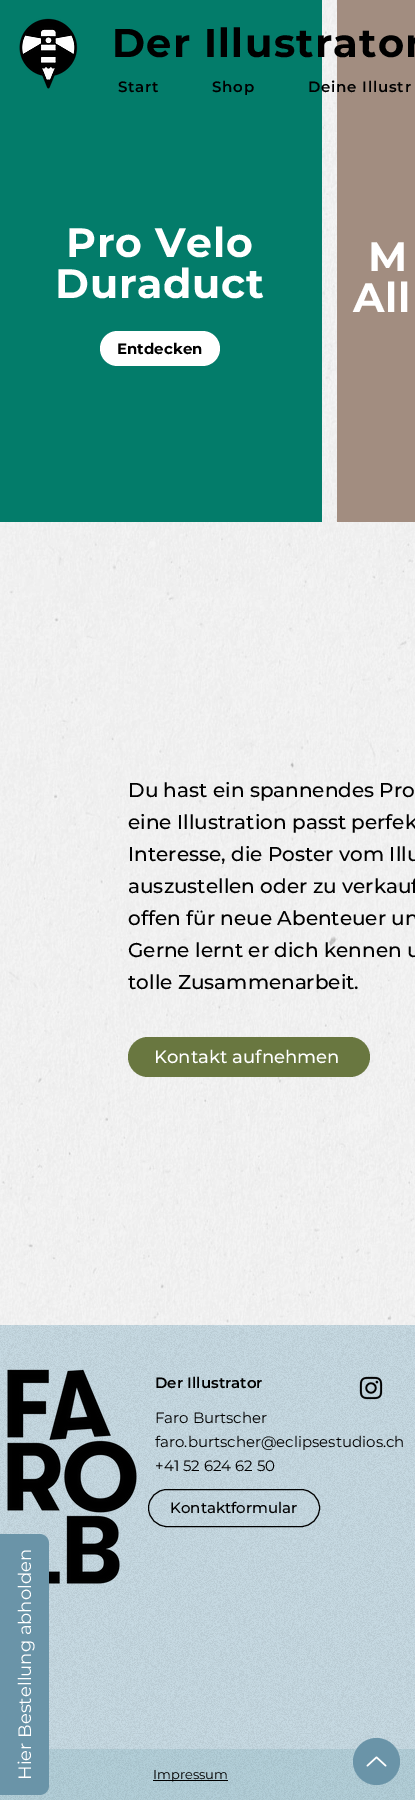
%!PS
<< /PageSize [415 1800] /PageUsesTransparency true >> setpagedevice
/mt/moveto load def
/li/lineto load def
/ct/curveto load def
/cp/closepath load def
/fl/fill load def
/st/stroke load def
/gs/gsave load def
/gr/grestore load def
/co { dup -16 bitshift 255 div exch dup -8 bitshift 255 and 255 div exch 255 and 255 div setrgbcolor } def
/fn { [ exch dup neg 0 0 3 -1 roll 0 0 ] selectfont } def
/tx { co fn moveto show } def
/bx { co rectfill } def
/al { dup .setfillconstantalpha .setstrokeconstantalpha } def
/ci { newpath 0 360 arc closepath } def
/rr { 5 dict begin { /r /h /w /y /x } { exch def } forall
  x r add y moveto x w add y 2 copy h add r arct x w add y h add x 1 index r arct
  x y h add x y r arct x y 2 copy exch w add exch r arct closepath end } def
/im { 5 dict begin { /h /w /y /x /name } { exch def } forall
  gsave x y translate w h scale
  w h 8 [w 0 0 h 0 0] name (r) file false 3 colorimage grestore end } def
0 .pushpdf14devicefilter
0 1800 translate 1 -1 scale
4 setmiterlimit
0 0 415 1800 16#F5F5F5 bx
(media/1.raw) 0 0 415 1325 im
0 0 322 522 16#037C6A bx
(media/2.raw) 19 18 59 71 im
16#FFFFFF co
100 331 120 35 17.5 rr fl
337 0 78 522 16#A28D80 bx
16#697740 co
128 1037 242 40 20 rr fl
0 1325 415 475 16#C6D9E2 bx
(media/3.raw) 0 1325 415 475 im
(media/4.raw) 7 1369 130 215 im
0.1 al
0 1749 415 51 16#036D7C bx
1 al
16#6A94A8 co
0 1795 mt 0 1534 li 39 1534 li 45 1534 49 1538 49 1544 ct 49 1785 li 49 1791 45 1795 39 1795 ct cp fl
(media/5.raw) 359 1376 24 24 im
16#000000 co
148.5 1489.5 171 37 18.5 rr st
153 1780 75 1 16#000000 bx
16#6A94A8 co
376.5 1761.5 23.5 ci fl
(media/6.raw) 366 1756 21 11 im
/Montserrat-Bold 40 fn
16#000000 co
112 57 mt 1.25 0 (Der Illustrator) ashow
/Montserrat-SemiBold 15 fn
118 92 mt .75 0 (Start) ashow
212 92 mt .75 0 (Shop) ashow
308 92 mt .75 0 (Deine Illustr) ashow
/Montserrat-Bold 41 fn
16#FFFFFF co
66 257 mt .75 0 (Pro Velo) ashow
55 298 mt .75 0 (Duraduct) ashow
(Entdecken) 117 354 /Montserrat-Bold 15 16#000000 tx
/Montserrat-Bold 41 fn
16#FFFFFF co
368 271 mt .75 0 (M) ashow
353 312 mt .75 0 (All) ashow
(Du hast ein spannendes Pro) 128 797 /Montserrat-Medium 20 16#000000 tx
(eine Illustration passt perfek) 128 829 /Montserrat-Medium 20 16#000000 tx
(Interesse, die Poster vom Illu) 128 861 /Montserrat-Medium 20 16#000000 tx
(auszustellen oder zu verkauf) 128 893 /Montserrat-Medium 20 16#000000 tx
(offen für neue Abenteuer un) 128 925 /Montserrat-Medium 20 16#000000 tx
(Gerne lernt er dich kennen u) 128 957 /Montserrat-Medium 20 16#000000 tx
(tolle Zusammenarbeit.) 128 989 /Montserrat-Medium 20 16#000000 tx
(Kontakt aufnehmen) 154 1063 /Montserrat-Medium 18 16#FFFFFF tx
/Montserrat-Regular 18 fn
gs 31 1780 translate -90 rotate 0 0 mt (Hier Bestellung abholden) show gr
(Der Illustrator) 155 1388 /Montserrat-SemiBold 15 16#000000 tx
(Faro Burtscher) 155 1423 /Montserrat-Regular 15 16#000000 tx
(faro.burtscher@eclipsestudios.ch) 155 1447 /Montserrat-Regular 15 16#000000 tx
(+41 52 624 62 50) 155 1471 /Montserrat-Regular 15 16#000000 tx
(Kontaktformular) 170 1513 /Montserrat-Medium 15 16#000000 tx
(Impressum) 153 1779 /Montserrat-Regular 13 16#000000 tx
.poppdf14devicefilter showpage
